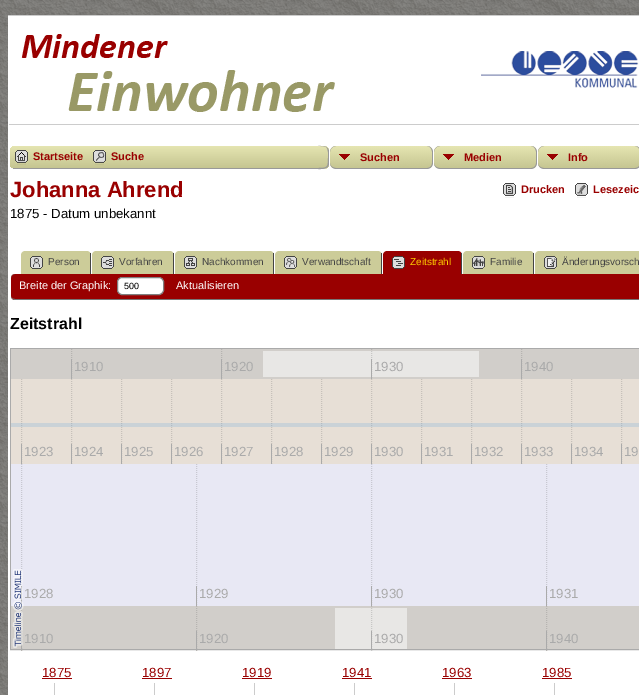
%!PS
<< /PageSize [639 695] /PageUsesTransparency true >> setpagedevice
/mt/moveto load def
/li/lineto load def
/ct/curveto load def
/cp/closepath load def
/fl/fill load def
/st/stroke load def
/gs/gsave load def
/gr/grestore load def
/co { dup -16 bitshift 255 div exch dup -8 bitshift 255 and 255 div exch 255 and 255 div setrgbcolor } def
/fn { [ exch dup neg 0 0 3 -1 roll 0 0 ] selectfont } def
/tx { co fn moveto show } def
/bx { co rectfill } def
/al { dup .setfillconstantalpha .setstrokeconstantalpha } def
/rr { 5 dict begin { /r /h /w /y /x } { exch def } forall
  x r add y moveto x w add y 2 copy h add r arct x w add y h add x 1 index r arct
  x y h add x y r arct x y 2 copy exch w add exch r arct closepath end } def
/im { 5 dict begin { /h /w /y /x /name } { exch def } forall
  gsave x y translate w h scale
  w h 8 [w 0 0 h 0 0] name (r) file false 3 colorimage grestore end } def
0 .pushpdf14devicefilter
0 695 translate 1 -1 scale
4 setmiterlimit
0 0 639 695 16#FFFFFF bx
(media/1.raw) 0 0 639 695 im
8 16 631 679 16#FFFFFF bx
8 15 631 1 16#CCCCCC bx
(media/2.raw) 21 34 314 78 im
(media/3.raw) 481 51 158 37 im
9 124 630 1 16#CCCCCC bx
16#CCCC99 co
10 146 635 23 6 rr fl
gs
10 146 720 23 6 rr clip newpath
gs 16 146 mt 639 146 li 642.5 146 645 148.5 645 152 ct 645 168 li 10 168 li 10 152 li 10 148.5 12.5 146 16 146 ct cp clip newpath
<< /ShadingType 2 /ColorSpace /DeviceRGB /Coords [370 146 370 168] /Extend [true true] /Function << /FunctionType 2 /Domain [0 1] /C0 [.898 .898 .694] /C1 [.773 .773 .569] /N 1 >> >> shfill gr
gr
13 168 305 1 16#999999 bx
(media/4.raw) 15 150 13 15 im
(media/5.raw) 93 150 13 15 im
323 146 316 23 16#FFFFFF bx
gs
318 146 mt 323 146 li 326.5 146 329 148.5 329 152 ct 329 163 li 329 166.5 326.5 169 323 169 ct 318 169 li cp clip newpath
gs 318 146 mt 329 146 li 329 168 li 318 168 li cp clip newpath
<< /ShadingType 2 /ColorSpace /DeviceRGB /Coords [323 146 323 168] /Extend [true true] /Function << /FunctionType 2 /Domain [0 1] /C0 [.898 .898 .694] /C1 [.773 .773 .569] /N 1 >> >> shfill gr
gs 318 168 mt 329 168 li 329 169 li 318 169 li cp clip newpath
<< /ShadingType 2 /ColorSpace /DeviceRGB /Coords [323 168 323 190] /Extend [true true] /Function << /FunctionType 2 /Domain [0 1] /C0 [.898 .898 .694] /C1 [.773 .773 .569] /N 1 >> >> shfill gr
gr
16#999999 co
318 146 mt 322 146 328 145.5 329 151 ct 329 164 li 328 169.5 322 169 318 169 ct cp 318 146 mt 324 146 li 329 147.5 328 154 328 157.5 ct 328 167.5 327.5 168 318 168 ct cp eofill
(media/6.raw) 330 146 102 22 im
336 146 mt 427 146 li 430 146 433 149 433 152 ct 433 163 li 433 166 430 169 427 169 ct 336 169 li 333 169 330 166 330 163 ct 330 152 li 330 149 333 146 336 146 ct cp 336 146 mt 427 146 li 430 146 432 149 432 152 ct 432 163 li 432 166 430 168 427 168 ct 336 168 li 333 168 330 166 330 163 ct 330 152 li 330 149 333 146 336 146 ct cp eofill
(media/7.raw) 434 146 102 22 im
440 146 mt 531 146 li 534 146 537 149 537 152 ct 537 163 li 537 166 534 169 531 169 ct 440 169 li 437 169 434 166 434 163 ct 434 152 li 434 149 437 146 440 146 ct cp 440 146 mt 531 146 li 534 146 536 149 536 152 ct 536 163 li 536 166 534 168 531 168 ct 440 168 li 437 168 434 166 434 163 ct 434 152 li 434 149 437 146 440 146 ct cp eofill
(media/8.raw) 538 146 101 22 im
544 146 mt 635 146 li 638 146 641 149 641 152 ct 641 163 li 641 166 638 169 635 169 ct 544 169 li 541 169 538 166 538 163 ct 538 152 li 538 149 541 146 544 146 ct cp 544 146 mt 635 146 li 638 146 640 149 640 152 ct 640 163 li 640 166 638 168 635 168 ct 544 168 li 541 168 538 166 538 163 ct 538 152 li 538 149 541 146 544 146 ct cp eofill
(media/9.raw) 503 183 13 15 im
(media/10.raw) 575 183 13 15 im
16#CCCC99 co
25 251 mt 87 251 li 89 251 91 253 91 255 ct 91 274 li 21 274 li 21 255 li 21 253 23 251 25 251 ct cp fl
90 253 1 21 16#444444 bx
(media/11.raw) 30 256 13 13 im
16#CCCC99 co
96 251 mt 170 251 li 172 251 174 253 174 255 ct 174 274 li 92 274 li 92 255 li 92 253 94 251 96 251 ct cp fl
173 253 1 21 16#444444 bx
(media/12.raw) 101 256 13 13 im
16#CCCC99 co
179 251 mt 270 251 li 272 251 274 253 274 255 ct 274 274 li 175 274 li 175 255 li 175 253 177 251 179 251 ct cp fl
273 253 1 21 16#444444 bx
(media/13.raw) 184 256 13 13 im
16#CCCC99 co
279 251 mt 378 251 li 380 251 382 253 382 255 ct 382 274 li 275 274 li 275 255 li 275 253 277 251 279 251 ct cp fl
381 253 1 21 16#444444 bx
(media/14.raw) 284 256 13 13 im
16#990000 co
387 251 mt 458 251 li 460 251 462 253 462 255 ct 462 274 li 383 274 li 383 255 li 383 253 385 251 387 251 ct cp fl
461 253 1 21 16#444444 bx
(media/15.raw) 392 256 13 13 im
16#CCCC99 co
467 251 mt 530 251 li 532 251 534 253 534 255 ct 534 274 li 463 274 li 463 255 li 463 253 465 251 467 251 ct cp fl
533 253 1 21 16#444444 bx
(media/16.raw) 472 256 13 13 im
16#CCCC99 co
539 251 mt 639 251 li 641 251 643 253 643 255 ct 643 274 li 535 274 li 535 255 li 535 253 537 251 539 251 ct cp fl
(media/17.raw) 544 256 13 13 im
16#990000 co
11 274 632 26 4 rr fl
16#777777 co
15 274 mt 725 274 li 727 274 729 276 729 278 ct 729 296 li 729 298 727 300 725 300 ct 15 300 li 13 300 11 298 11 296 ct 11 278 li 11 276 13 274 15 274 ct cp 15 274 mt 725 274 li 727 274 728 276 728 278 ct 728 296 li 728 298 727 299 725 299 ct 15 299 li 13 299 11 298 11 296 ct 11 278 li 11 276 13 274 15 274 ct cp eofill
16#FFFFFF co
117.5 277.5 46 17 4.5 rr gs fl gr
16#808080 co
st
16#AAAAAA co
10.5 348.5 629 301 rectstroke
11 349 628 30 16#D1CECA bx
263 351 216 26 16#E8E7E5 bx
16#B6B4B1 co
[1 1] 0 setdash
71.5 349 mt 71.5 379 li st
221.5 349 mt 221.5 379 li st
0.25 al
16#666666 co
371.5 349 mt 371.5 379 li st
1 al
16#B6B4B1 co
521.5 349 mt 521.5 379 li st
71 359 1 20 16#AAAAAA bx
221 359 1 20 16#AAAAAA bx
371 359 1 20 16#AAAAAA bx
521 359 1 20 16#AAAAAA bx
11 379 628 85 16#E7DFD6 bx
16#C7C1BA co
21.5 379 mt 21.5 464 li st
71.5 379 mt 71.5 464 li st
121.5 379 mt 121.5 464 li st
171.5 379 mt 171.5 464 li st
221.5 379 mt 221.5 464 li st
271.5 379 mt 271.5 464 li st
321.5 379 mt 321.5 464 li st
371.5 379 mt 371.5 464 li st
421.5 379 mt 421.5 464 li st
471.5 379 mt 471.5 464 li st
521.5 379 mt 521.5 464 li st
571.5 379 mt 571.5 464 li st
621.5 379 mt 621.5 464 li st
0.2 al
11 423 628 4 16#58A0DC bx
1 al
21 444 1 20 16#AAAAAA bx
71 444 1 20 16#AAAAAA bx
121 444 1 20 16#AAAAAA bx
171 444 1 20 16#AAAAAA bx
221 444 1 20 16#AAAAAA bx
271 444 1 20 16#AAAAAA bx
321 444 1 20 16#AAAAAA bx
371 444 1 20 16#AAAAAA bx
421 444 1 20 16#AAAAAA bx
471 444 1 20 16#AAAAAA bx
521 444 1 20 16#AAAAAA bx
571 444 1 20 16#AAAAAA bx
621 444 1 20 16#AAAAAA bx
11 464 628 142 16#E8E8F4 bx
16#C8C8D1 co
21.5 464 mt 21.5 606 li st
21 586 1 20 16#AAAAAA bx
11 606 628 43 16#D1CECA bx
16#B6B4B1 co
21.5 606 mt 21.5 651 li st
21 631 1 18 16#AAAAAA bx
(media/18.raw) 12 569 12 79 im
16#C8C8D1 co
196.5 464 mt 196.5 606 li st
371.5 464 mt 371.5 606 li st
546.5 464 mt 546.5 606 li st
196 586 1 20 16#AAAAAA bx
371 586 1 20 16#AAAAAA bx
546 586 1 20 16#AAAAAA bx
335 608 72 41 16#E8E7E5 bx
16#B6B4B1 co
196.5 606 mt 196.5 651 li st
0.25 al
16#666666 co
371.5 606 mt 371.5 651 li st
1 al
16#B6B4B1 co
546.5 606 mt 546.5 651 li st
196 631 1 18 16#AAAAAA bx
371 631 1 18 16#AAAAAA bx
546 631 1 18 16#AAAAAA bx
42 678 30 1 16#990000 bx
142 678 30 1 16#990000 bx
242 678 30 1 16#990000 bx
342 678 30 1 16#990000 bx
442 678 30 1 16#990000 bx
542 678 30 1 16#990000 bx
54 683 1 12 16#CCCCCC bx
154 683 1 12 16#CCCCCC bx
254 683 1 12 16#CCCCCC bx
354 683 1 12 16#CCCCCC bx
454 683 1 12 16#CCCCCC bx
554 683 1 12 16#CCCCCC bx
(Startseite) 33 160 /LiberationSans-Bold 11 16#990000 tx
(Suche) 111 160 /LiberationSans-Bold 11 16#990000 tx
(Suchen) 360 161 /LiberationSans-Bold 11 16#990000 tx
(Medien) 464 161 /LiberationSans-Bold 11 16#990000 tx
(Info) 568 161 /LiberationSans-Bold 11 16#990000 tx
(Johanna Ahrend) 10 197 /LiberationSans-Bold 22 16#990000 tx
(Drucken) 521 193 /LiberationSans-Bold 11 16#990000 tx
(Lesezeic) 593 193 /LiberationSans-Bold 11 16#990000 tx
(1875 - Datum unbekannt) 10 218 /LiberationSans-Regular 13.25 16#000000 tx
(Person) 48 265 /LiberationSans-Regular 10 16#444444 tx
(Vorfahren) 119 265 /LiberationSans-Regular 10 16#444444 tx
(Nachkommen) 202 265 /LiberationSans-Regular 10 16#444444 tx
(Verwandtschaft) 302 265 /LiberationSans-Regular 10 16#444444 tx
(Zeitstrahl) 410 265 /LiberationSans-Regular 10 16#FFCC00 tx
(Familie) 490 265 /LiberationSans-Regular 10 16#444444 tx
(Änderungsvorsch) 562 265 /LiberationSans-Regular 10 16#444444 tx
(Breite der Graphik:) 19 289 /LiberationSans-Regular 11 16#FFFFFF tx
(500) 124 289 /LiberationSans-Regular 9 16#000000 tx
(Aktualisieren) 176 289 /LiberationSans-Regular 11 16#FFFFFF tx
(Zeitstrahl) 10 329 /LiberationSans-Bold 16 16#000000 tx
(1910) 74 371 /LiberationSans-Regular 13.25 16#AAAAAA tx
(1920) 224 371 /LiberationSans-Regular 13.25 16#AAAAAA tx
(1930) 374 371 /LiberationSans-Regular 13.25 16#AAAAAA tx
(1940) 524 371 /LiberationSans-Regular 13.25 16#AAAAAA tx
(1923) 24 456 /LiberationSans-Regular 13.25 16#AAAAAA tx
(1924) 74 456 /LiberationSans-Regular 13.25 16#AAAAAA tx
(1925) 124 456 /LiberationSans-Regular 13.25 16#AAAAAA tx
(1926) 174 456 /LiberationSans-Regular 13.25 16#AAAAAA tx
(1927) 224 456 /LiberationSans-Regular 13.25 16#AAAAAA tx
(1928) 274 456 /LiberationSans-Regular 13.25 16#AAAAAA tx
(1929) 324 456 /LiberationSans-Regular 13.25 16#AAAAAA tx
(1930) 374 456 /LiberationSans-Regular 13.25 16#AAAAAA tx
(1931) 424 456 /LiberationSans-Regular 13.25 16#AAAAAA tx
(1932) 474 456 /LiberationSans-Regular 13.25 16#AAAAAA tx
(1933) 524 456 /LiberationSans-Regular 13.25 16#AAAAAA tx
(1934) 574 456 /LiberationSans-Regular 13.25 16#AAAAAA tx
(19) 624 456 /LiberationSans-Regular 13.25 16#AAAAAA tx
(1928) 24 598 /LiberationSans-Regular 13.25 16#AAAAAA tx
(1929) 199 598 /LiberationSans-Regular 13.25 16#AAAAAA tx
(1930) 374 598 /LiberationSans-Regular 13.25 16#AAAAAA tx
(1931) 549 598 /LiberationSans-Regular 13.25 16#AAAAAA tx
(1910) 24 643 /LiberationSans-Regular 13.25 16#AAAAAA tx
(1920) 199 643 /LiberationSans-Regular 13.25 16#AAAAAA tx
(1930) 374 643 /LiberationSans-Regular 13.25 16#AAAAAA tx
(1940) 549 643 /LiberationSans-Regular 13.25 16#AAAAAA tx
(1875) 42 677 /LiberationSans-Regular 13.25 16#990000 tx
(1897) 142 677 /LiberationSans-Regular 13.25 16#990000 tx
(1919) 242 677 /LiberationSans-Regular 13.25 16#990000 tx
(1941) 342 677 /LiberationSans-Regular 13.25 16#990000 tx
(1963) 442 677 /LiberationSans-Regular 13.25 16#990000 tx
(1985) 542 677 /LiberationSans-Regular 13.25 16#990000 tx
.poppdf14devicefilter showpage
